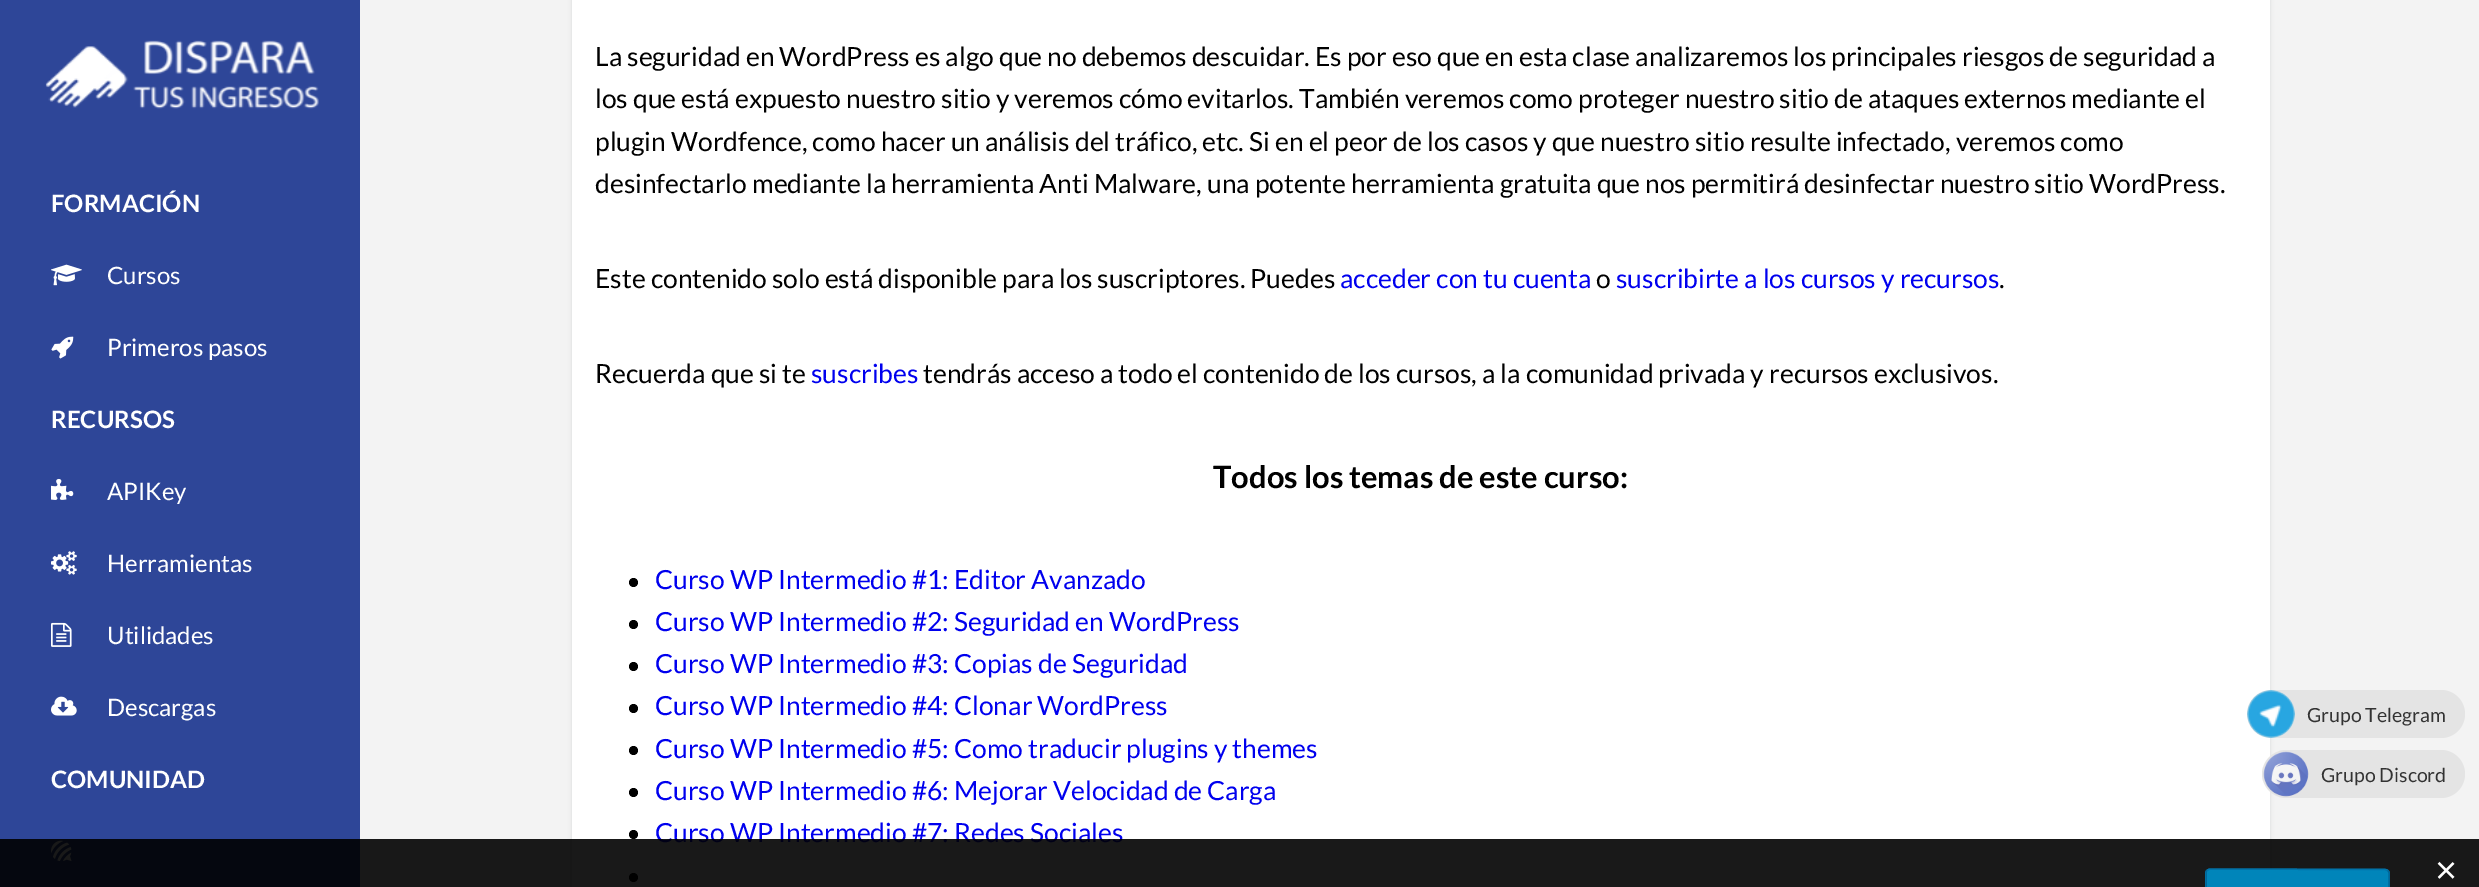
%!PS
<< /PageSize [2479 887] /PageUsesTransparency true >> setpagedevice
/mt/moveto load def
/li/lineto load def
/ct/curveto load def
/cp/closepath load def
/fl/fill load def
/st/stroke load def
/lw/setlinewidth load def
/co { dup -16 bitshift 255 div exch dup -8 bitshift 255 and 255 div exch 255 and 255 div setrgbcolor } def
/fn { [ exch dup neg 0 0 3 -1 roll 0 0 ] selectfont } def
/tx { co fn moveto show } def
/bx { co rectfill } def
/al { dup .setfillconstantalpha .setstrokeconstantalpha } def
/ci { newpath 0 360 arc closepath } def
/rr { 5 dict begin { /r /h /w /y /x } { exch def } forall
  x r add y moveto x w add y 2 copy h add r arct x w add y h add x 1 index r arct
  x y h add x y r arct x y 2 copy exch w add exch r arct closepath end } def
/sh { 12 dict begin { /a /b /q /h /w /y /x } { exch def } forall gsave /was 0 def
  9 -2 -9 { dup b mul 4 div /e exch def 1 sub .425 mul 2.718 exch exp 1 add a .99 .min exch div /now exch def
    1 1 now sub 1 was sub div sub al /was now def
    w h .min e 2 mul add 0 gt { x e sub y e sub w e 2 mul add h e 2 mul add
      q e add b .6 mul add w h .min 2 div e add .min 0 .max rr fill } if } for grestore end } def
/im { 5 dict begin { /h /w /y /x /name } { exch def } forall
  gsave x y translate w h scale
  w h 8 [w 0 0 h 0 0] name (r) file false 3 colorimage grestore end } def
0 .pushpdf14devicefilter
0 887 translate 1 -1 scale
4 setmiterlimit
0 0 2479 887 16#F3F3F3 bx
0 0 360 887 16#2E4698 bx
(media/1.raw) 45 40 274 69 im
(media/2.raw) 51 264 31 22 im
(media/3.raw) 51 336 23 23 im
(media/4.raw) 51 478 23 22 im
(media/5.raw) 51 551 26 24 im
(media/6.raw) 51 622 21 25 im
(media/7.raw) 51 696 26 20 im
(media/8.raw) 51 840 21 22 im
16#373F43 co
572 -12 1698 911 6 2 .16 sh
572 0 1698 887 16#FFFFFF bx
16#000000 co
633.5 582.5 4.5 ci fl
633.5 624.5 4.5 ci fl
633.5 666.5 4.5 ci fl
633.5 708.5 4.5 ci fl
633.5 750.5 4.5 ci fl
633.5 792.5 4.5 ci fl
633.5 834.5 4.5 ci fl
633.5 877.5 4.5 ci fl
16#E4E4E4 co
2247 690 218 48 24 rr fl
(media/9.raw) 2247 690 48 48 im
2262 750 203 48 24 rr fl
(media/10.raw) 2263 751 46 46 im
(FORMACIÓN) 51 212 /Lato-Bold 24 16#FFFFFF tx
(Cursos) 107 284 /Lato-Regular 24 16#FFFFFF tx
(Primeros pasos) 107 356 /Lato-Regular 24 16#FFFFFF tx
(RECURSOS) 51 428 /Lato-Bold 24 16#FFFFFF tx
(APIKey) 107 500 /Lato-Regular 24 16#FFFFFF tx
(Herramientas) 107 572 /Lato-Regular 24 16#FFFFFF tx
(Utilidades) 107 644 /Lato-Regular 24 16#FFFFFF tx
(Descargas) 107 716 /Lato-Regular 24 16#FFFFFF tx
(COMUNIDAD) 51 788 /Lato-Bold 24 16#FFFFFF tx
(La seguridad en WordPress es algo que no debemos descuidar. Es por eso que en esta clase analizaremos los principales riesgos de seguridad a) 595 66 /Lato-Regular 26.4 16#000000 tx
(los que está expuesto nuestro sitio y veremos cómo evitarlos. También veremos como proteger nuestro sitio de ataques externos mediante el) 595 108 /Lato-Regular 26.4 16#000000 tx
(plugin Wordfence, como hacer un análisis del tráfico, etc. Si en el peor de los casos y que nuestro sitio resulte infectado, veremos como) 595 151 /Lato-Regular 26.4 16#000000 tx
(desinfectarlo mediante la herramienta Anti Malware, una potente herramienta gratuita que nos permitirá desinfectar nuestro sitio WordPress.) 595 193 /Lato-Regular 26.4 16#000000 tx
(Este contenido solo está disponible para los suscriptores. Puedes) 595 288 /Lato-Regular 26.4 16#000000 tx
(acceder con tu cuenta) 1340 288 /Lato-Regular 26.4 16#0000EE tx
(o) 1596 288 /Lato-Regular 26.4 16#000000 tx
(suscribirte a los cursos y recursos) 1616 288 /Lato-Regular 26.4 16#0000EE tx
(.) 1999 288 /Lato-Regular 26.4 16#000000 tx
(Recuerda que si te) 595 383 /Lato-Regular 26.4 16#000000 tx
(suscribes) 811 383 /Lato-Regular 26.4 16#0000EE tx
(tendrás acceso a todo el contenido de los cursos, a la comunidad privada y recursos exclusivos.) 923 383 /Lato-Regular 26.4 16#000000 tx
(Todos los temas de este curso:) 1213 488 /Lato-Bold 30.9 16#000000 tx
(Curso WP Intermedio #1: Editor Avanzado) 655 589 /Lato-Regular 26.4 16#0000EE tx
(Curso WP Intermedio #2: Seguridad en WordPress) 655 631 /Lato-Regular 26.4 16#0000EE tx
(Curso WP Intermedio #3: Copias de Seguridad) 655 673 /Lato-Regular 26.4 16#0000EE tx
(Curso WP Intermedio #4: Clonar WordPress) 655 715 /Lato-Regular 26.4 16#0000EE tx
(Curso WP Intermedio #5: Como traducir plugins y themes) 655 758 /Lato-Regular 26.4 16#0000EE tx
(Curso WP Intermedio #6: Mejorar Velocidad de Carga) 655 800 /Lato-Regular 26.4 16#0000EE tx
(Curso WP Intermedio #7: Redes Sociales) 655 842 /Lato-Regular 26.4 16#0000EE tx
(Grupo Telegram) 2307 722 /Lato-Regular 19.5 16#333333 tx
(Grupo Discord) 2321 782 /Lato-Regular 19.5 16#333333 tx
0.9 al
0 839 2479 48 16#000000 bx
1 al
16#0085BA co
2210 869 mt 2385 869 li 2388 869 2390 871 2390 874 ct 2390 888 li 2205 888 li 2205 874 li 2205 871 2207 869 2210 869 ct cp fl
16#0073AA co
1.5 lw
2207 870.5 mt 2209.5 869 li 2385.5 869.5 li 2387.5 870.5 li st
16#006799 co
2387.5 870.5 mt 2388.5 871 2389 872 2389 873 ct 2389 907.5 li 2389 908.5 2388.5 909.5 2387.5 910 ct 2387 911 2386 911 2385 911 ct 2209.5 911 li 2208.5 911 2207.5 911 2207 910 ct 2206 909.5 2206 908.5 2206 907.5 ct 2206 873 li 2206 872 2206 871 2207 870.5 ct st
(×) 2435 883 /LiberationSans-Regular 38 16#FFFFFF tx
.poppdf14devicefilter showpage
